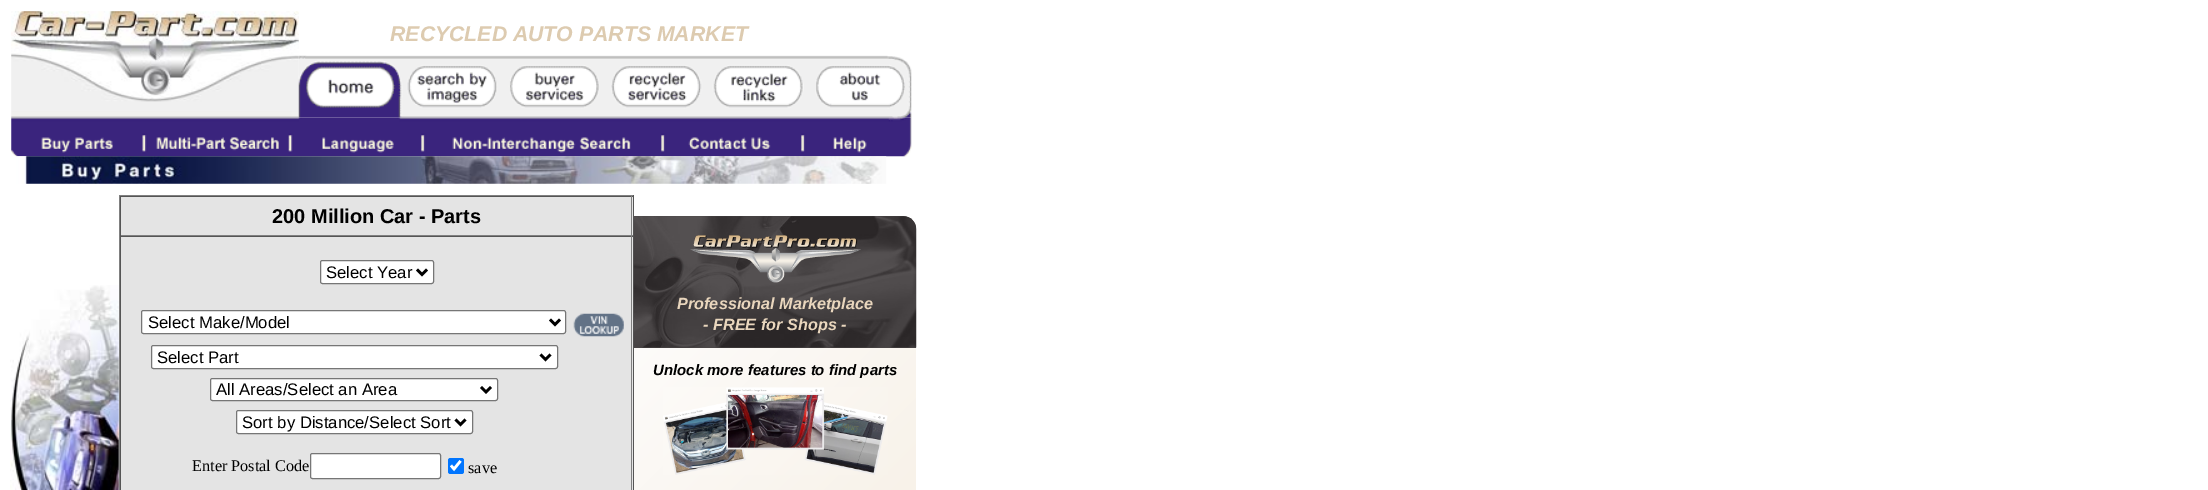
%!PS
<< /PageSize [2208 490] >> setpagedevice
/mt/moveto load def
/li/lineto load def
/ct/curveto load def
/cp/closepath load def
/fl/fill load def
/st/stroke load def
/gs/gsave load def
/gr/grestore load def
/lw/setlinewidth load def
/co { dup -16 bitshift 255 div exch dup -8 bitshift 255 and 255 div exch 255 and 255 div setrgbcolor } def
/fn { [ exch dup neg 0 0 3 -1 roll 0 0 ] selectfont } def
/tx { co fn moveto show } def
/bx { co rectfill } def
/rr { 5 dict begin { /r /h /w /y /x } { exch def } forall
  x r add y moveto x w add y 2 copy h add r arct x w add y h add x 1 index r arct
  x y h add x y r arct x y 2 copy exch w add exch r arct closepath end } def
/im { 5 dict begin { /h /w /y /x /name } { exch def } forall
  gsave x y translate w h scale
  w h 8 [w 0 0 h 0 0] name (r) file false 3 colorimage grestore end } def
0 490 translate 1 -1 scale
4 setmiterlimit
0 0 2208 490 16#FFFFFF bx
(media/1.raw) 11 11 288 107 im
(media/2.raw) 298 55 614 63 im
(media/3.raw) 11 117 901 40 im
(media/4.raw) 15 156 872 28 im
(media/5.raw) 10 285 109 205 im
119 195 515 1 16#808080 bx
633 195 1 295 16#555555 bx
119 195 1 295 16#808080 bx
121 197 512 38 16#E4E4E4 bx
120 196 513 1 16#555555 bx
631 196 1 40 16#808080 bx
120 235 513 1 16#808080 bx
120 196 1 40 16#555555 bx
121 237 512 253 16#E4E4E4 bx
120 236 513 1 16#555555 bx
631 236 1 254 16#808080 bx
120 236 1 254 16#555555 bx
16#FFFFFF co
320.5 260.5 113 23 2 rr gs fl gr
16#767676 co
st
16#000000 co
2.5 lw
417 269.5 mt 422 274.5 li 427 269.5 li st
16#FFFFFF co
141.5 310.5 424 23 2 rr gs fl gr
16#767676 co
1 lw
st
16#000000 co
2.5 lw
550 319.5 mt 555 324.5 li 560 319.5 li st
(media/6.raw) 573 313 51 24 im
16#FFFFFF co
151.5 345.5 406 23 2 rr gs fl gr
16#767676 co
1 lw
st
16#000000 co
2.5 lw
540.5 354.5 mt 545.5 359.5 li 550.5 354.5 li st
16#FFFFFF co
210.5 378.5 287 22 2 rr gs fl gr
16#767676 co
1 lw
st
16#000000 co
2.5 lw
481 387 mt 486 392 li 491 387 li st
16#FFFFFF co
236.5 410.5 236 23 2 rr gs fl gr
16#767676 co
1 lw
st
16#000000 co
2.5 lw
455.5 419.5 mt 460.5 424.5 li 465.5 419.5 li st
16#FFFFFF co
310.5 453.5 130 25 2 rr gs fl gr
16#767676 co
1 lw
st
16#0075FF co
448 458 16 16 2.5 rr fl
16#FFFFFF co
2.6 lw
451 465.5 mt 454 469 li 460.5 461 li st
gs 634 216 mt 903 216 li 910 216 916 222 916 229 ct 916 490 li 916 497 910 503 903 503 ct 634 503 li cp clip newpath
<< /ShadingType 2 /ColorSpace /DeviceRGB /Coords [608 242 942 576] /Extend [true true] /Function << /FunctionType 2 /Domain [0 1] /C0 [1 1 1] /C1 [.965 .937 .898] /N 1 >> >> shfill gr
16#4C4849 co
634 216 mt 903 216 li 910 216 916 222 916 229 ct 916 348 li 634 348 li cp fl
(media/7.raw) 633 216 284 132 im
(media/8.raw) 690 235 171 48 im
(media/9.raw) 663 387 225 88 im
(RECYCLED AUTO PARTS MARKET) 390 41 /LiberationSans-BoldItalic 21.25 16#DDCBB0 tx
(200 Million Car - Parts) 272 223 /LiberationSans-Bold 20 16#000000 tx
(Select Year) 326 278 /LiberationSans-Regular 16.7 16#000000 tx
(Select Make/Model) 148 328 /LiberationSans-Regular 16.7 16#000000 tx
(Select Part) 157 363 /LiberationSans-Regular 16.7 16#000000 tx
(All Areas/Select an Area) 216 395 /LiberationSans-Regular 16.7 16#000000 tx
(Sort by Distance/Select Sort) 242 428 /LiberationSans-Regular 16.7 16#000000 tx
(Enter Postal Code) 192 471 /LiberationSerif-Regular 16.25 16#000000 tx
(save) 468 473 /LiberationSerif-Regular 16.25 16#000000 tx
(Professional Marketplace) 677 309 /LiberationSans-BoldItalic 16.25 16#E9D6BD tx
(- FREE for Shops -) 703 330 /LiberationSans-BoldItalic 16.25 16#E9D6BD tx
(Unlock more features to find parts) 653 375 /LiberationSans-BoldItalic 15 16#000000 tx
showpage
